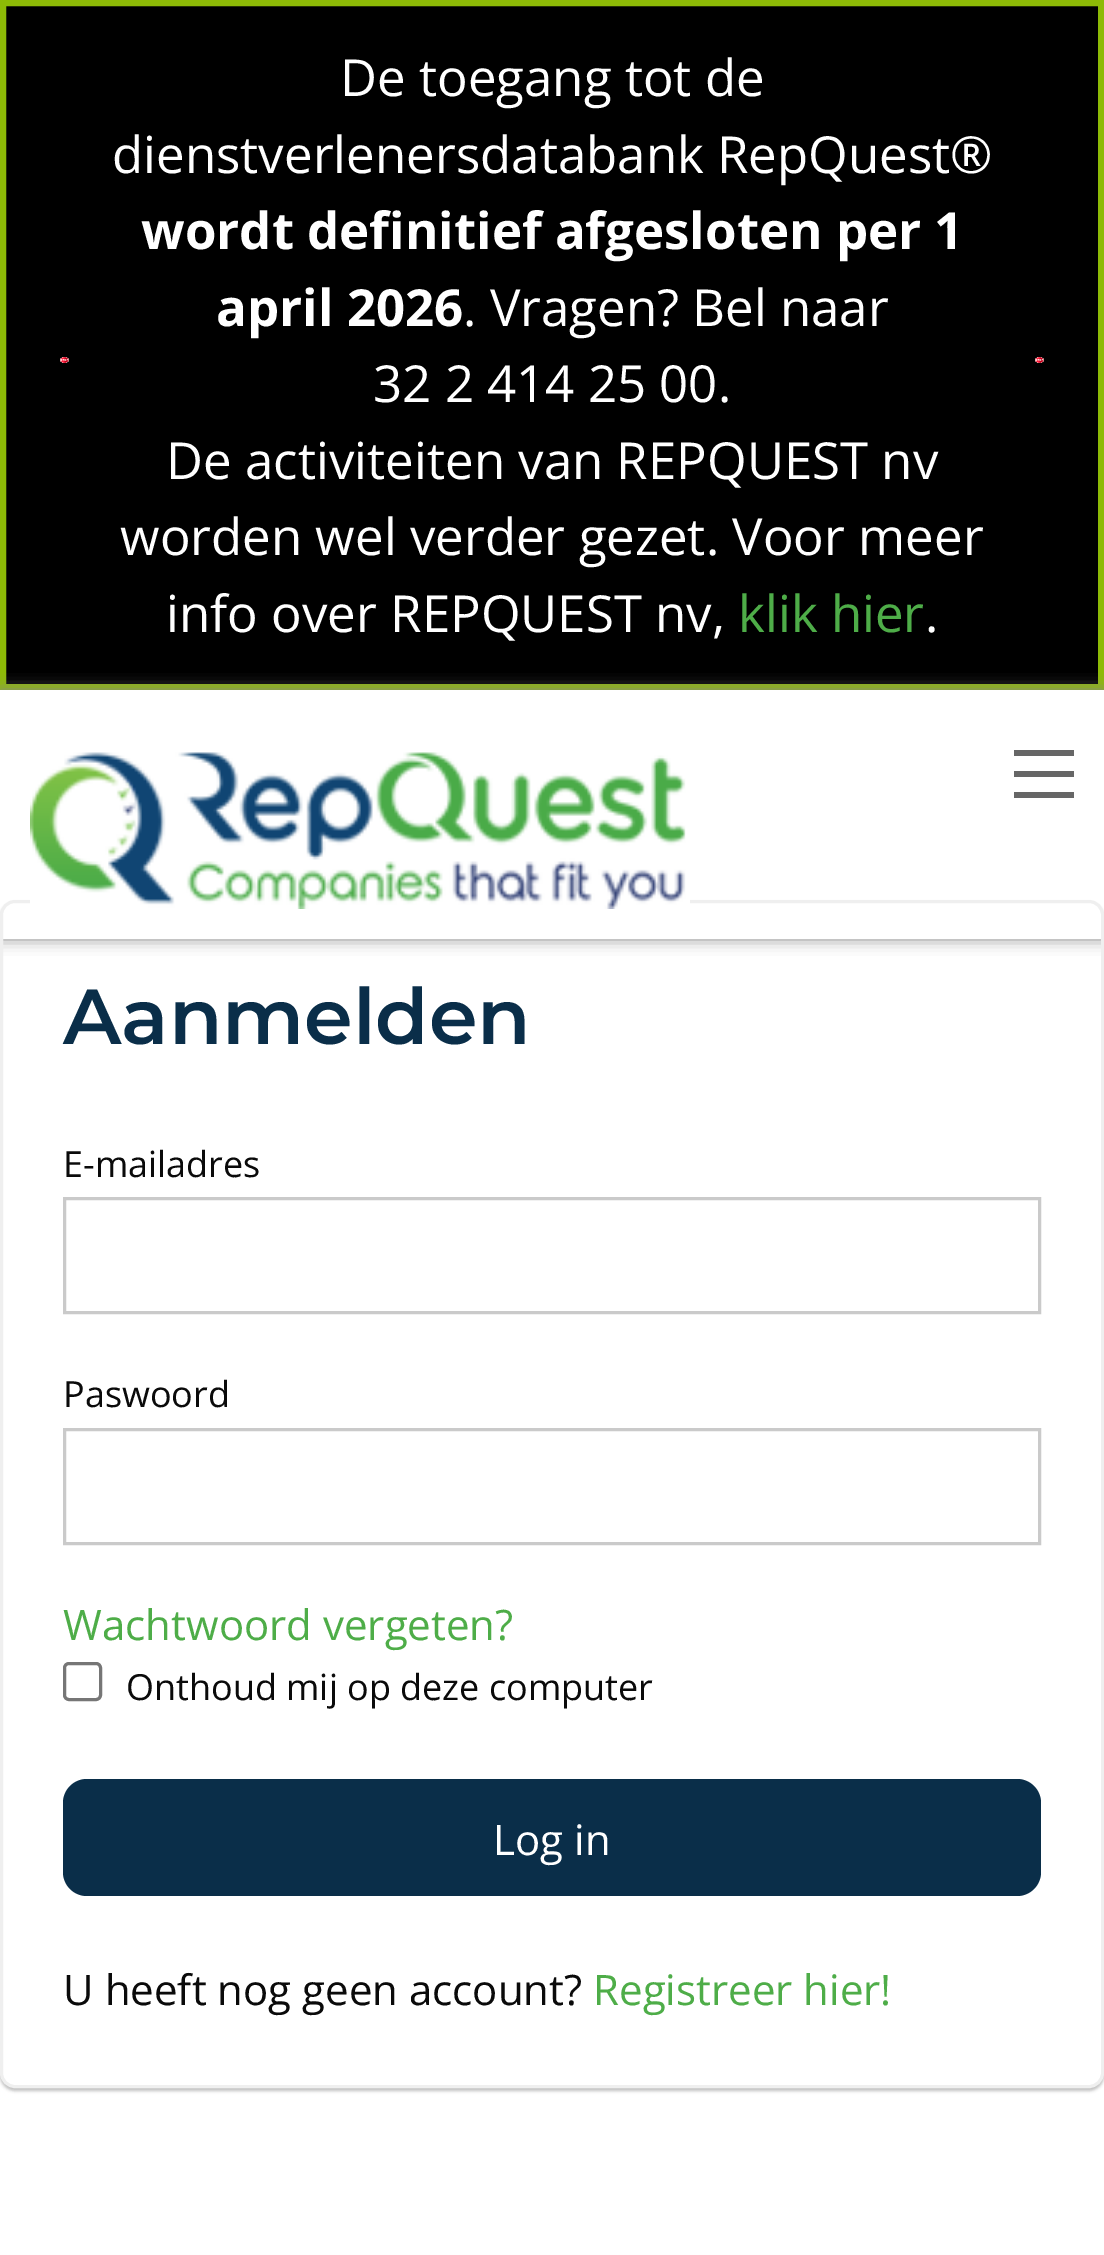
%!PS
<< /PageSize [1104 2255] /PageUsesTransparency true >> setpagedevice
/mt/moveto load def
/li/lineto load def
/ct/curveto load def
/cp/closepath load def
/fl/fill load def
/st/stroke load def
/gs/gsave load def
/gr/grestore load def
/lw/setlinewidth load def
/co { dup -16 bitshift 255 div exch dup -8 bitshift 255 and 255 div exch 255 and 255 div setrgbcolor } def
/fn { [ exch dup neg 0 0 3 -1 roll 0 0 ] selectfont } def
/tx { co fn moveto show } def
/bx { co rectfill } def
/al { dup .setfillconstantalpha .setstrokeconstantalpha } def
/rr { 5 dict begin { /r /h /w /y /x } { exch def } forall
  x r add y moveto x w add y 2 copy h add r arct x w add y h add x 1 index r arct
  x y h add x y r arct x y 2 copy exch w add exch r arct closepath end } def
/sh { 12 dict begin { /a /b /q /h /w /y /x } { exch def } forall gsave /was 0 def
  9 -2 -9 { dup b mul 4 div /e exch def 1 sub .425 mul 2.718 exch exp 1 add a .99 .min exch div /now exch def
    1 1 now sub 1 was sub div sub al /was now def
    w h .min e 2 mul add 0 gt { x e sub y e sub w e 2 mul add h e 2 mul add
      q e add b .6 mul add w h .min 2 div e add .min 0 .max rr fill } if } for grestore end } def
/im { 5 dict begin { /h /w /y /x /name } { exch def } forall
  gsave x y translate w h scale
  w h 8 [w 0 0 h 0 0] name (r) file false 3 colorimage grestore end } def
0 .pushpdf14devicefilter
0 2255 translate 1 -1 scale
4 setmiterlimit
0 0 1104 2255 16#FFFFFF bx
16#000000 co
3 3 mt 1101 3 li 1101 687 li 3 687 li cp gs fl gr
16#8DBA06 co
6 lw
st
(media/1.raw) 60 357 9 6 im
(media/1.raw) 1035 357 9 6 im
16#888888 co
0 690 1104 249 0 7.5 1 sh
0 690 1104 249 16#FFFFFF bx
gs
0 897 mt 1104 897 li 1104 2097 li 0 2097 li cp 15 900 mt 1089 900 li 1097.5 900 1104 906.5 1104 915 ct 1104 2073 li 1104 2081.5 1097.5 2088 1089 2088 ct 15 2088 li 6.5 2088 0 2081.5 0 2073 ct 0 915 li 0 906.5 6.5 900 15 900 ct cp eoclip newpath
16#C1C1C1 co
0 903 1104 1188 15 1.5 1 sh
gr
16#EFEFEF co
3 lw
1.5 901.5 1101 1185 13.5 rr st
(media/2.raw) 30 752 660 157 im
1014 792 60 6 16#666666 bx
1014 771 60 6 16#666666 bx
1014 750 60 6 16#666666 bx
16#CACACA co
64.5 1198.5 975 114 rectstroke
64.5 1429.5 975 114 rectstroke
16#767676 co
64.5 1663.5 36 36 4.5 rr st
16#0A2E49 co
63 1779 978 117 24 rr fl
(De toegang tot de) 340 96 /OpenSans-Regular 51 16#FFFFFF tx
(dienstverlenersdatabank RepQuest®) 112 173 /OpenSans-Regular 51 16#FFFFFF tx
(wordt definitief afgesloten per 1) 141 249 /OpenSans-Bold 51 16#FFFFFF tx
(april 2026) 216 326 /OpenSans-Bold 51 16#FFFFFF tx
(. Vragen? Bel naar) 463 326 /OpenSans-Regular 51 16#FFFFFF tx
(32 2 414 25 00.) 373 402 /OpenSans-Regular 51 16#FFFFFF tx
(De activiteiten van REPQUEST nv) 166 479 /OpenSans-Regular 51 16#FFFFFF tx
(worden wel verder gezet. Voor meer) 120 555 /OpenSans-Regular 51 16#FFFFFF tx
(info over REPQUEST nv,) 166 632 /OpenSans-Regular 51 16#FFFFFF tx
(klik hier) 738 632 /OpenSans-Regular 51 16#4EAD48 tx
(.) 925 632 /OpenSans-Regular 51 16#FFFFFF tx
(Aanmelden) 63 1044 /Montserrat-SemiBold 78 16#0A2E49 tx
(E-mailadres) 63 1177 /OpenSans-Regular 36 16#0A0A0A tx
(Paswoord) 63 1407 /OpenSans-Regular 36 16#0A0A0A tx
(Wachtwoord vergeten?) 63 1640 /OpenSans-Regular 42 16#4EAD48 tx
(Onthoud mij op deze computer) 126 1700 /OpenSans-Regular 36 16#0A0A0A tx
(Log in) 493 1855 /OpenSans-Regular 42 16#FFFFFF tx
(U heeft nog geen account?) 63 2005 /OpenSans-Regular 42 16#0A0A0A tx
(Registreer hier!) 593 2005 /OpenSans-Regular 42 16#4EAD48 tx
.poppdf14devicefilter showpage
